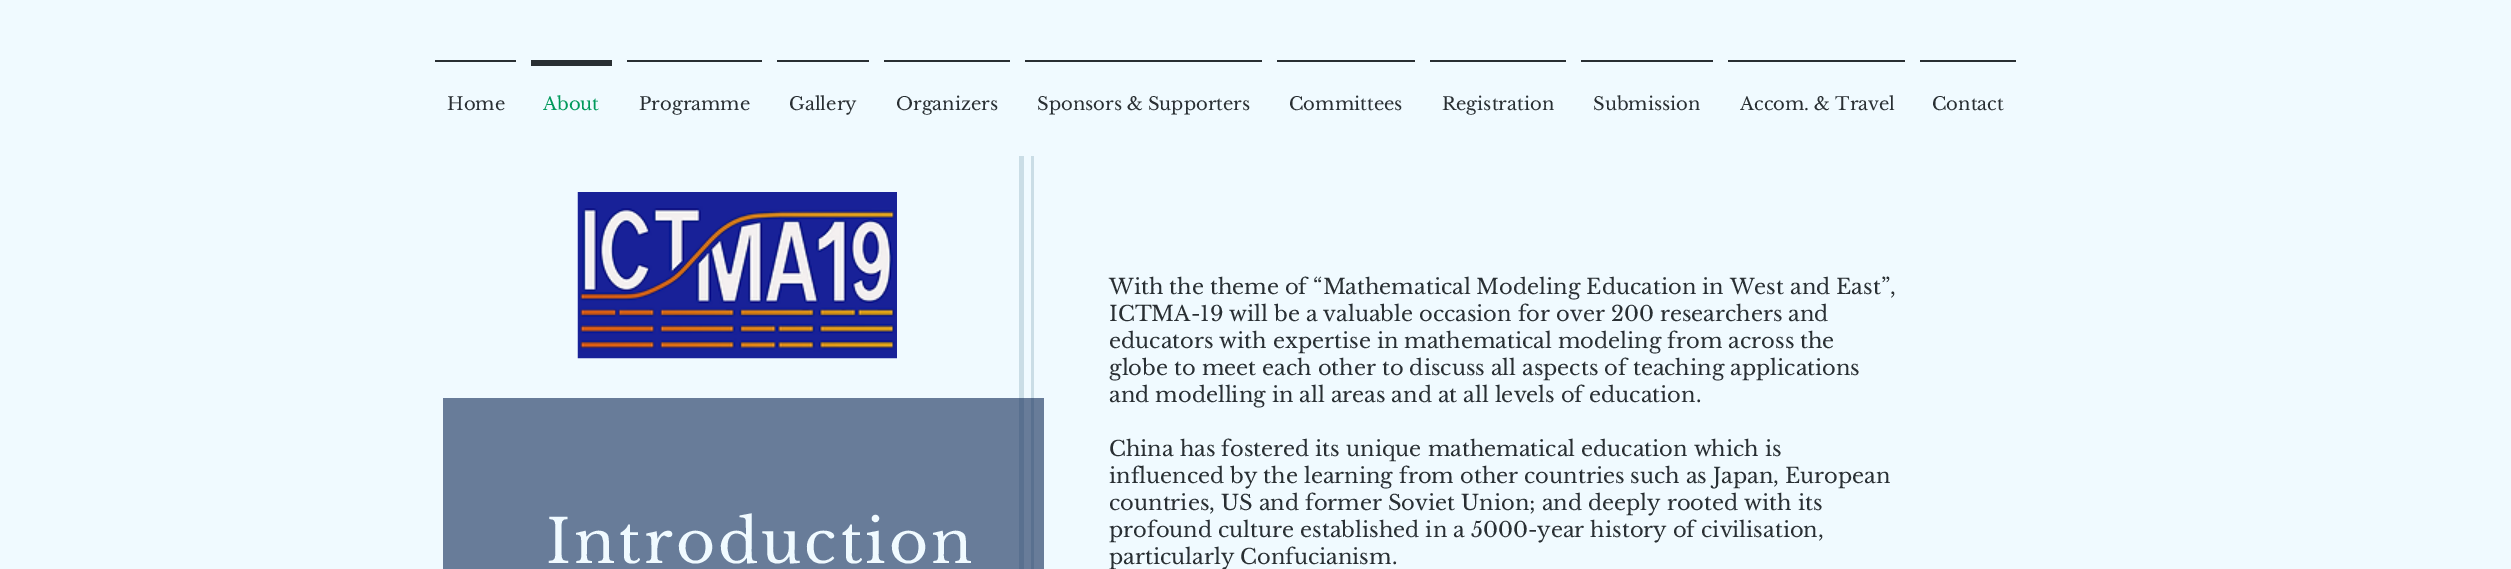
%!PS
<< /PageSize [2511 569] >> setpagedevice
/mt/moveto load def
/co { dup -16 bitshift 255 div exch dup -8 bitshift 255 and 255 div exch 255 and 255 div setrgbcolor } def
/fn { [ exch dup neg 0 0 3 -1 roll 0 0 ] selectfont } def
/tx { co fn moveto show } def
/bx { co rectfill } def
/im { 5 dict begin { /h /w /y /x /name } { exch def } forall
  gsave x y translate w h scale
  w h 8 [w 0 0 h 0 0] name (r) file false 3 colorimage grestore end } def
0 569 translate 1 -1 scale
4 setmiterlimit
0 0 2511 569 16#F0FAFF bx
435 60 81 2 16#292F33 bx
531 60 81 6 16#292F33 bx
627 60 135 2 16#292F33 bx
777 60 92 2 16#292F33 bx
884 60 126 2 16#292F33 bx
1025 60 237 2 16#292F33 bx
1277 60 138 2 16#292F33 bx
1430 60 136 2 16#292F33 bx
1581 60 132 2 16#292F33 bx
1728 60 177 2 16#292F33 bx
1920 60 96 2 16#292F33 bx
(media/1.raw) 577 192 320 167 im
1031 156 3 242 16#CADDE6 bx
443 398 601 171 16#687C99 bx
1031 398 3 171 16#59708F bx
1019 156 5 242 16#CADDE6 bx
1019 398 5 171 16#59708F bx
(Home) 447 110 /LibreBaskerville-Regular 18 16#292F33 tx
(About) 543 110 /LibreBaskerville-Regular 18 16#00995B tx
(Programme) 639 110 /LibreBaskerville-Regular 18 16#292F33 tx
(Gallery) 789 110 /LibreBaskerville-Regular 18 16#292F33 tx
(Organizers) 896 110 /LibreBaskerville-Regular 18 16#292F33 tx
(Sponsors & Supporters) 1037 110 /LibreBaskerville-Regular 18 16#292F33 tx
(Committees) 1289 110 /LibreBaskerville-Regular 18 16#292F33 tx
(Registration) 1442 110 /LibreBaskerville-Regular 18 16#292F33 tx
(Submission) 1593 110 /LibreBaskerville-Regular 18 16#292F33 tx
(Accom. & Travel) 1740 110 /LibreBaskerville-Regular 18 16#292F33 tx
(Contact) 1932 110 /LibreBaskerville-Regular 18 16#292F33 tx
(With the theme of “Mathematical Modeling Education in West and East”,) 1109 294 /LibreBaskerville-Regular 21 16#292F33 tx
(ICTMA-19 will be a valuable occasion for over 200 researchers and) 1109 321 /LibreBaskerville-Regular 21 16#292F33 tx
(educators with expertise in mathematical modeling from across the) 1109 348 /LibreBaskerville-Regular 21 16#292F33 tx
(globe to meet each other to discuss all aspects of teaching applications) 1109 375 /LibreBaskerville-Regular 21 16#292F33 tx
(and modelling in all areas and at all levels of education.) 1109 402 /LibreBaskerville-Regular 21 16#292F33 tx
(China has fostered its unique mathematical education which is) 1109 456 /LibreBaskerville-Regular 21 16#292F33 tx
(influenced by the learning from other countries such as Japan, European) 1109 483 /LibreBaskerville-Regular 21 16#292F33 tx
(countries, US and former Soviet Union; and deeply rooted with its) 1109 510 /LibreBaskerville-Regular 21 16#292F33 tx
(profound culture established in a 5000-year history of civilisation,) 1109 537 /LibreBaskerville-Regular 21 16#292F33 tx
(particularly Confucianism.) 1109 564 /LibreBaskerville-Regular 21 16#292F33 tx
/LibreBaskerville-Regular 60 fn
16#F0FAFF co
546 563 mt 3 0 (Introduction) ashow
showpage
